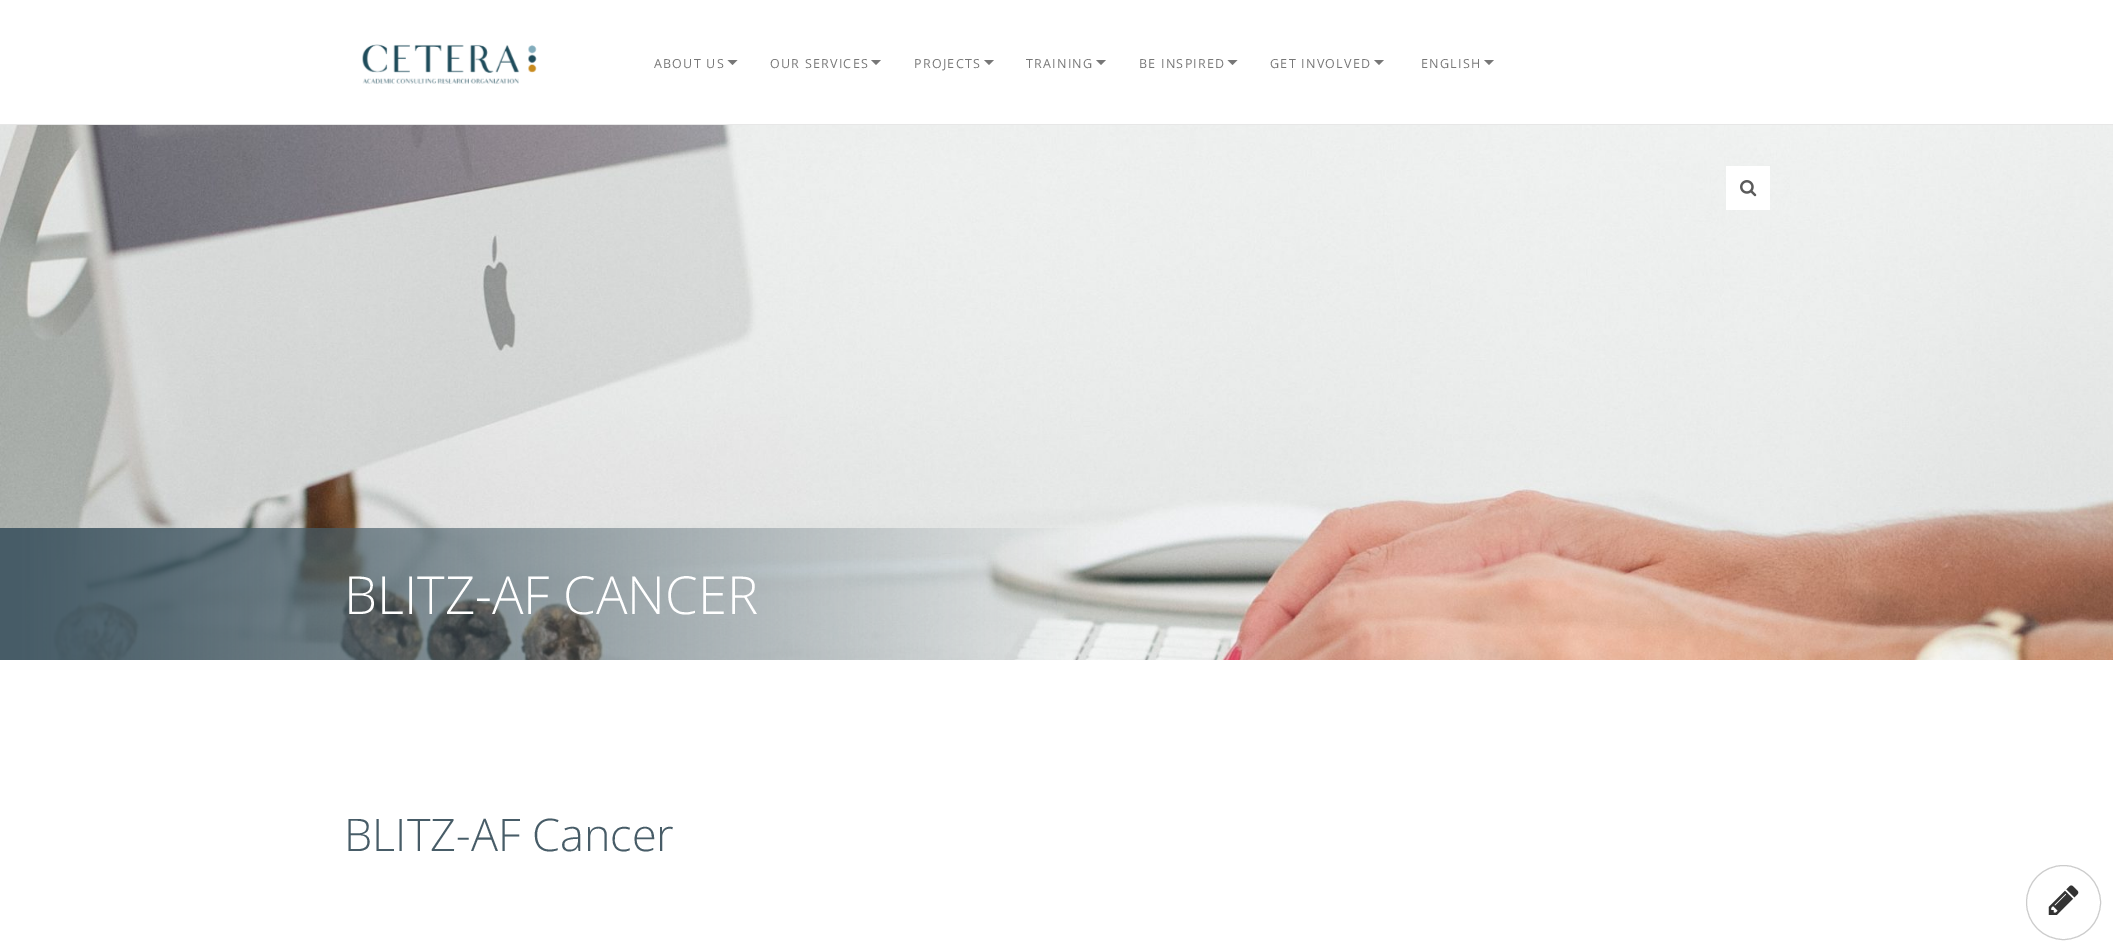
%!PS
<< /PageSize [2113 952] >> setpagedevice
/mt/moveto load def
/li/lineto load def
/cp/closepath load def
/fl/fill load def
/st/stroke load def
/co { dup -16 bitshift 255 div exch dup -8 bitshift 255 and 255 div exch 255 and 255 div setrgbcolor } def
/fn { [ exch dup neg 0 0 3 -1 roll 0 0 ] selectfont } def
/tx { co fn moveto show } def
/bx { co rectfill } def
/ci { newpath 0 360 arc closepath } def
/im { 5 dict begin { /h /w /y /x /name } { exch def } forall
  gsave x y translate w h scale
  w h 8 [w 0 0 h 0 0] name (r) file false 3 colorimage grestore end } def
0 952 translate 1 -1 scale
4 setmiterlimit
0 0 2113 952 16#FFFFFF bx
0 124 2113 1 16#E7E7E7 bx
(media/1.raw) 362 44 175 40 im
16#777777 co
727.5 60 mt 737.5 60 li 732.5 65 li cp fl
871 60 mt 881 60 li 876 65 li cp fl
984 60 mt 994 60 li 989 65 li cp fl
1096 60 mt 1106 60 li 1101 65 li cp fl
1227.5 60 mt 1237.5 60 li 1232.5 65 li cp fl
1374 60 mt 1384 60 li 1379 65 li cp fl
1484 60 mt 1494 60 li 1489 65 li cp fl
(media/3.raw) 0 125 2113 535 im
1726 166 44 44 16#FFFFFF bx
(media/2.raw) 1740 180 17 17 im
16#CCCCCC co
2063.5 902.5 37 ci st
(media/4.raw) 2048 885 31 30 im
/OpenSans-Regular 12.5 fn
16#777777 co
654 68 mt 1.25 0 (ABOUT US) ashow
770 68 mt 1.25 0 (OUR SERVICES) ashow
914 68 mt 1.25 0 (PROJECTS) ashow
1026 68 mt 1.25 0 (TRAINING) ashow
1139 68 mt 1.25 0 (BE INSPIRED) ashow
1270 68 mt 1.25 0 (GET INVOLVED) ashow
1421 68 mt 1.25 0 (ENGLISH) ashow
(BLITZ-AF CANCER) 344 614 /OpenSans-Light 52.5 16#FFFFFF tx
(BLITZ-AF Cancer) 344 851 /OpenSans-Light 45 16#475C67 tx
showpage
